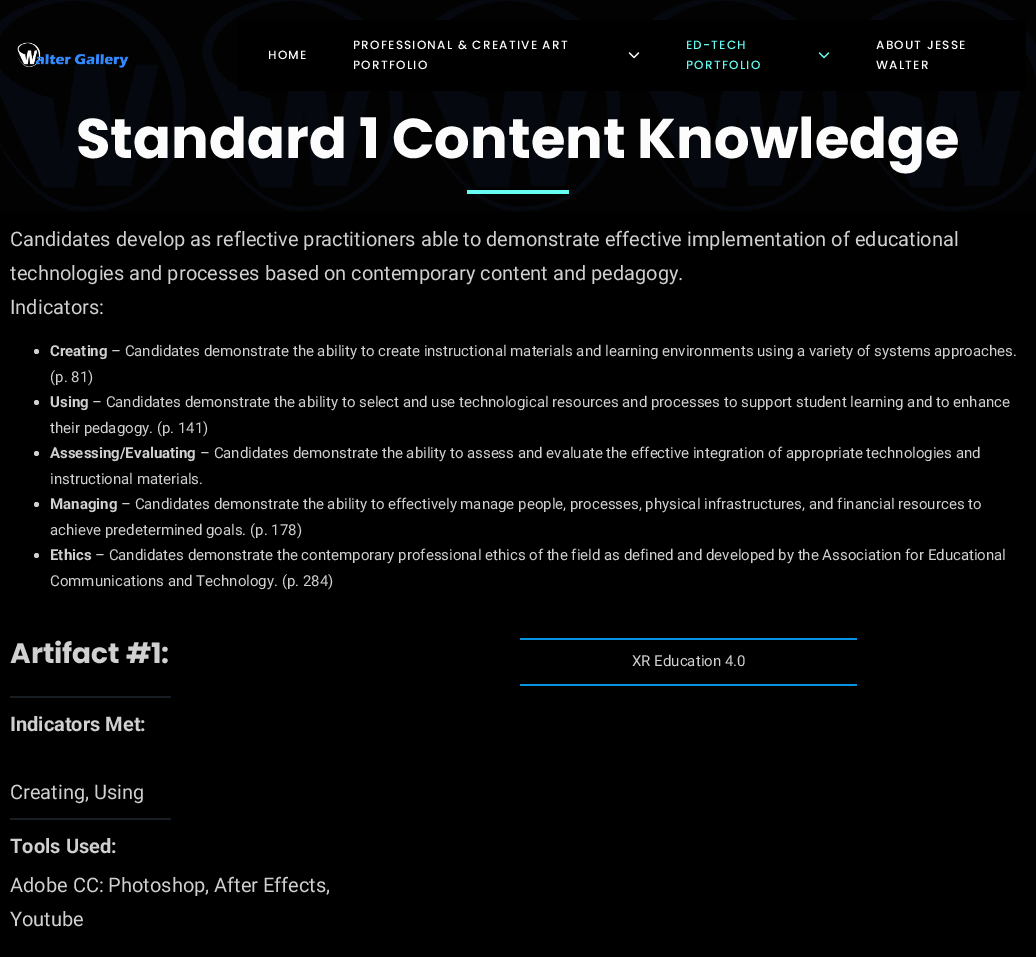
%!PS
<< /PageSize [1036 957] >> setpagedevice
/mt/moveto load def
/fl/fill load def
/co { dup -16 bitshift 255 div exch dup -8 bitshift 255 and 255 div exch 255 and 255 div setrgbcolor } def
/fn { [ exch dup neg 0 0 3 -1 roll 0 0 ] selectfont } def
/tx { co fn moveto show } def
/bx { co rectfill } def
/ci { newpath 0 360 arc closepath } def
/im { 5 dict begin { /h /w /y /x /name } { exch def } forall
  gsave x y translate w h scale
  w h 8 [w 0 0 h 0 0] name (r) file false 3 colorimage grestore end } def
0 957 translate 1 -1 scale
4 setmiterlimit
0 0 1036 957 16#000001 bx
(media/4.raw) 0 0 1036 212 im
(media/1.raw) 17 42 112 26 im
238 20 788 71 16#000000 bx
(media/2.raw) 628 52 12 7 im
(media/3.raw) 818 52 12 7 im
467 190 102 4 16#66FCF1 bx
16#D0D0D0 co
36.5 351.5 2.5 ci fl
36.5 402.5 2.5 ci fl
36.5 453.5 2.5 ci fl
36.5 504.5 2.5 ci fl
36.5 555.5 2.5 ci fl
10 696 161 2 16#181D23 bx
10 818 161 2 16#181D23 bx
520 638 337 2 16#0693E3 bx
520 684 337 2 16#0693E3 bx
/Poppins-Medium 12 fn
16#FCFCFC co
268 59 mt 1.2 0 (HOME) ashow
353 49 mt 1.2 0 (PROFESSIONAL & CREATIVE ART) ashow
353 69 mt 1.2 0 (PORTFOLIO) ashow
16#66FCF1 co
686 49 mt 1.2 0 (ED-TECH) ashow
686 69 mt 1.2 0 (PORTFOLIO) ashow
16#FCFCFC co
876 49 mt 1.2 0 (ABOUT JESSE) ashow
876 69 mt 1.2 0 (WALTER) ashow
(Standard 1 Content Knowledge) 76 158 /Poppins-Bold 56 16#FCFCFC tx
(Candidates develop as reflective practitioners able to demonstrate effective implementation of educational) 10 246 /Roboto-Regular 20 16#D0D0D0 tx
(technologies and processes based on contemporary content and pedagogy.) 10 280 /Roboto-Regular 20 16#D0D0D0 tx
(Indicators:) 10 314 /Roboto-Regular 20 16#D0D0D0 tx
(Creating) 50 356 /Roboto-Bold 15 16#D0D0D0 tx
(– Candidates demonstrate the ability to create instructional materials and learning environments using a variety of systems approaches.) 111 356 /Roboto-Regular 15 16#D0D0D0 tx
(\(p. 81\)) 50 382 /Roboto-Regular 15 16#D0D0D0 tx
(Using) 50 407 /Roboto-Bold 15 16#D0D0D0 tx
(– Candidates demonstrate the ability to select and use technological resources and processes to support student learning and to enhance) 92 407 /Roboto-Regular 15 16#D0D0D0 tx
(their pedagogy. \(p. 141\)) 50 433 /Roboto-Regular 15 16#D0D0D0 tx
(Assessing/Evaluating) 50 458 /Roboto-Bold 15 16#D0D0D0 tx
(– Candidates demonstrate the ability to assess and evaluate the effective integration of appropriate technologies and) 200 458 /Roboto-Regular 15 16#D0D0D0 tx
(instructional materials.) 50 484 /Roboto-Regular 15 16#D0D0D0 tx
(Managing) 50 509 /Roboto-Bold 15 16#D0D0D0 tx
(– Candidates demonstrate the ability to effectively manage people, processes, physical infrastructures, and financial resources to) 121 509 /Roboto-Regular 15 16#D0D0D0 tx
(achieve predetermined goals. \(p. 178\)) 50 535 /Roboto-Regular 15 16#D0D0D0 tx
(Ethics) 50 560 /Roboto-Bold 15 16#D0D0D0 tx
(– Candidates demonstrate the contemporary professional ethics of the field as defined and developed by the Association for Educational) 95 560 /Roboto-Regular 15 16#D0D0D0 tx
(Communications and Technology. \(p. 284\)) 50 586 /Roboto-Regular 15 16#D0D0D0 tx
(Artifact #1:) 10 663 /Poppins-Bold 28 16#D0D0D0 tx
(Indicators Met:) 10 731 /Roboto-Bold 20 16#D0D0D0 tx
(Creating, Using) 10 799 /Roboto-Regular 20 16#D0D0D0 tx
(Tools Used:) 10 853 /Roboto-Bold 20 16#D0D0D0 tx
(Adobe CC: Photoshop, After Effects,) 10 892 /Roboto-Regular 20 16#D0D0D0 tx
(Youtube) 10 926 /Roboto-Regular 20 16#D0D0D0 tx
(XR Education 4.0) 632 666 /Roboto-Regular 15 16#D0D0D0 tx
showpage
